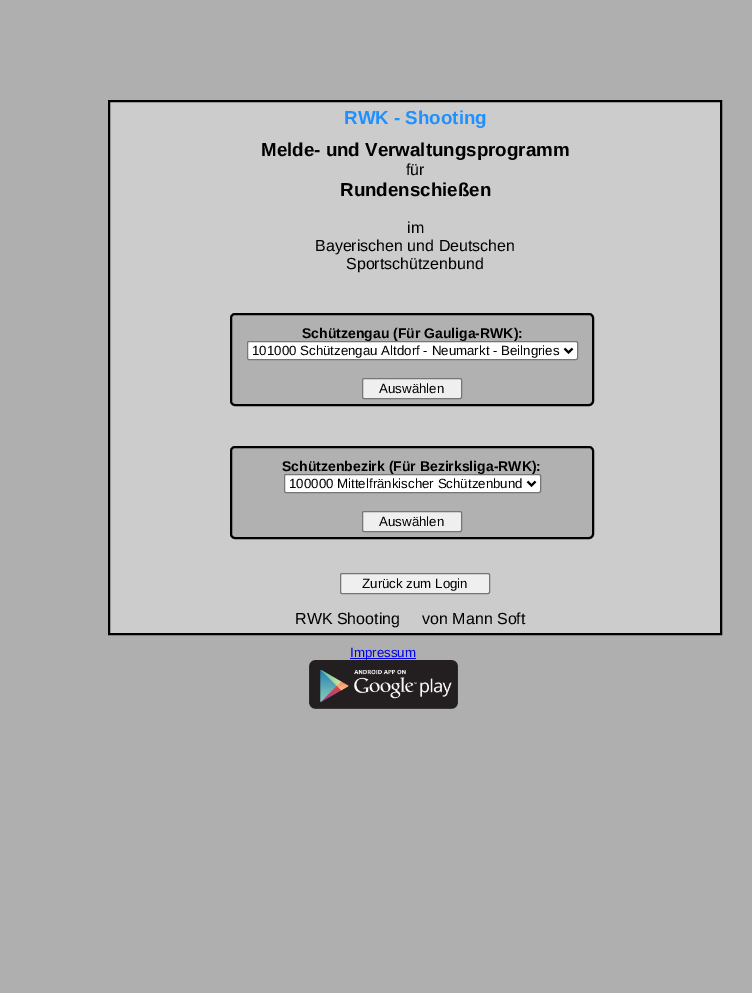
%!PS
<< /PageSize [752 993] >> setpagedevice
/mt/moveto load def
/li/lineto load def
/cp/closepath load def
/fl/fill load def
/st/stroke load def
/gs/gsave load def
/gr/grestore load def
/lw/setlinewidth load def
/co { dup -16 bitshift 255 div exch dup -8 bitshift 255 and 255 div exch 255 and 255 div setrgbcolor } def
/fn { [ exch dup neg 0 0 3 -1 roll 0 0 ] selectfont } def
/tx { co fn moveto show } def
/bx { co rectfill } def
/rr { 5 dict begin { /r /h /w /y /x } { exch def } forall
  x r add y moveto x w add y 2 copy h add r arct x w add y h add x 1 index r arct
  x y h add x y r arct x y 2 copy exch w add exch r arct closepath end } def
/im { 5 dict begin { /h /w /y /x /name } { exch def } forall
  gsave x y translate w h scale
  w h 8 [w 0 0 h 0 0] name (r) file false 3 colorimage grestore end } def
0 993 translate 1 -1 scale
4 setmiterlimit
0 0 752 993 16#AFAFAF bx
16#CCCCCC co
109 101 mt 721 101 li 721 634 li 109 634 li cp gs fl gr
16#000000 co
2 lw
st
16#B1B1B1 co
231 314 362 91 4 rr gs fl gr
16#000000 co
st
16#FFFFFF co
247.5 341.5 330 18 1.5 rr gs fl gr
16#767676 co
1 lw
st
16#000000 co
2 lw
564.5 348.5 mt 568.5 352.5 li 572.5 348.5 li st
16#EFEFEF co
362.5 378.5 99 20 1.5 rr gs fl gr
16#767676 co
1 lw
st
16#B1B1B1 co
231 447 362 91 4 rr gs fl gr
16#000000 co
2 lw
st
16#FFFFFF co
284.5 474.5 256 18 1.5 rr gs fl gr
16#767676 co
1 lw
st
16#000000 co
2 lw
527.5 481.5 mt 531.5 485.5 li 535.5 481.5 li st
16#EFEFEF co
362.5 511.5 99 20 1.5 rr gs fl gr
16#767676 co
1 lw
st
16#EFEFEF co
340.5 573.5 149 20 1.5 rr gs fl gr
16#767676 co
st
350 658 66 1 16#0000EE bx
(media/1.raw) 309 660 149 49 im
(RWK - Shooting) 344 124 /LiberationSans-Bold 18.75 16#1E90FF tx
(Melde- und Verwaltungsprogramm) 261 156 /LiberationSans-Bold 18.75 16#000000 tx
(für) 406 175 /LiberationSans-Regular 16 16#000000 tx
(Rundenschießen) 340 196 /LiberationSans-Bold 18.75 16#000000 tx
(im) 407 233 /LiberationSans-Regular 16 16#000000 tx
(Bayerischen und Deutschen) 315 251 /LiberationSans-Regular 16 16#000000 tx
(Sportschützenbund) 346 269 /LiberationSans-Regular 16 16#000000 tx
(Schützengau \(Für Gauliga-RWK\):) 302 338 /LiberationSans-Bold 14 16#000000 tx
(101000 Schützengau Altdorf - Neumarkt - Beilngries) 252 355 /LiberationSans-Regular 13.3 16#000000 tx
(Auswählen) 379 393 /LiberationSans-Regular 13.3 16#000000 tx
(Schützenbezirk \(Für Bezirksliga-RWK\):) 282 471 /LiberationSans-Bold 14 16#000000 tx
(100000 Mittelfränkischer Schützenbund) 289 488 /LiberationSans-Regular 13.3 16#000000 tx
(Auswählen) 379 526 /LiberationSans-Regular 13.3 16#000000 tx
(Zurück zum Login) 362 588 /LiberationSans-Regular 13.3 16#000000 tx
(RWK Shooting     von Mann Soft) 295 624 /LiberationSans-Regular 16 16#000000 tx
(Impressum) 350 657 /LiberationSans-Regular 13.3 16#0000EE tx
showpage
